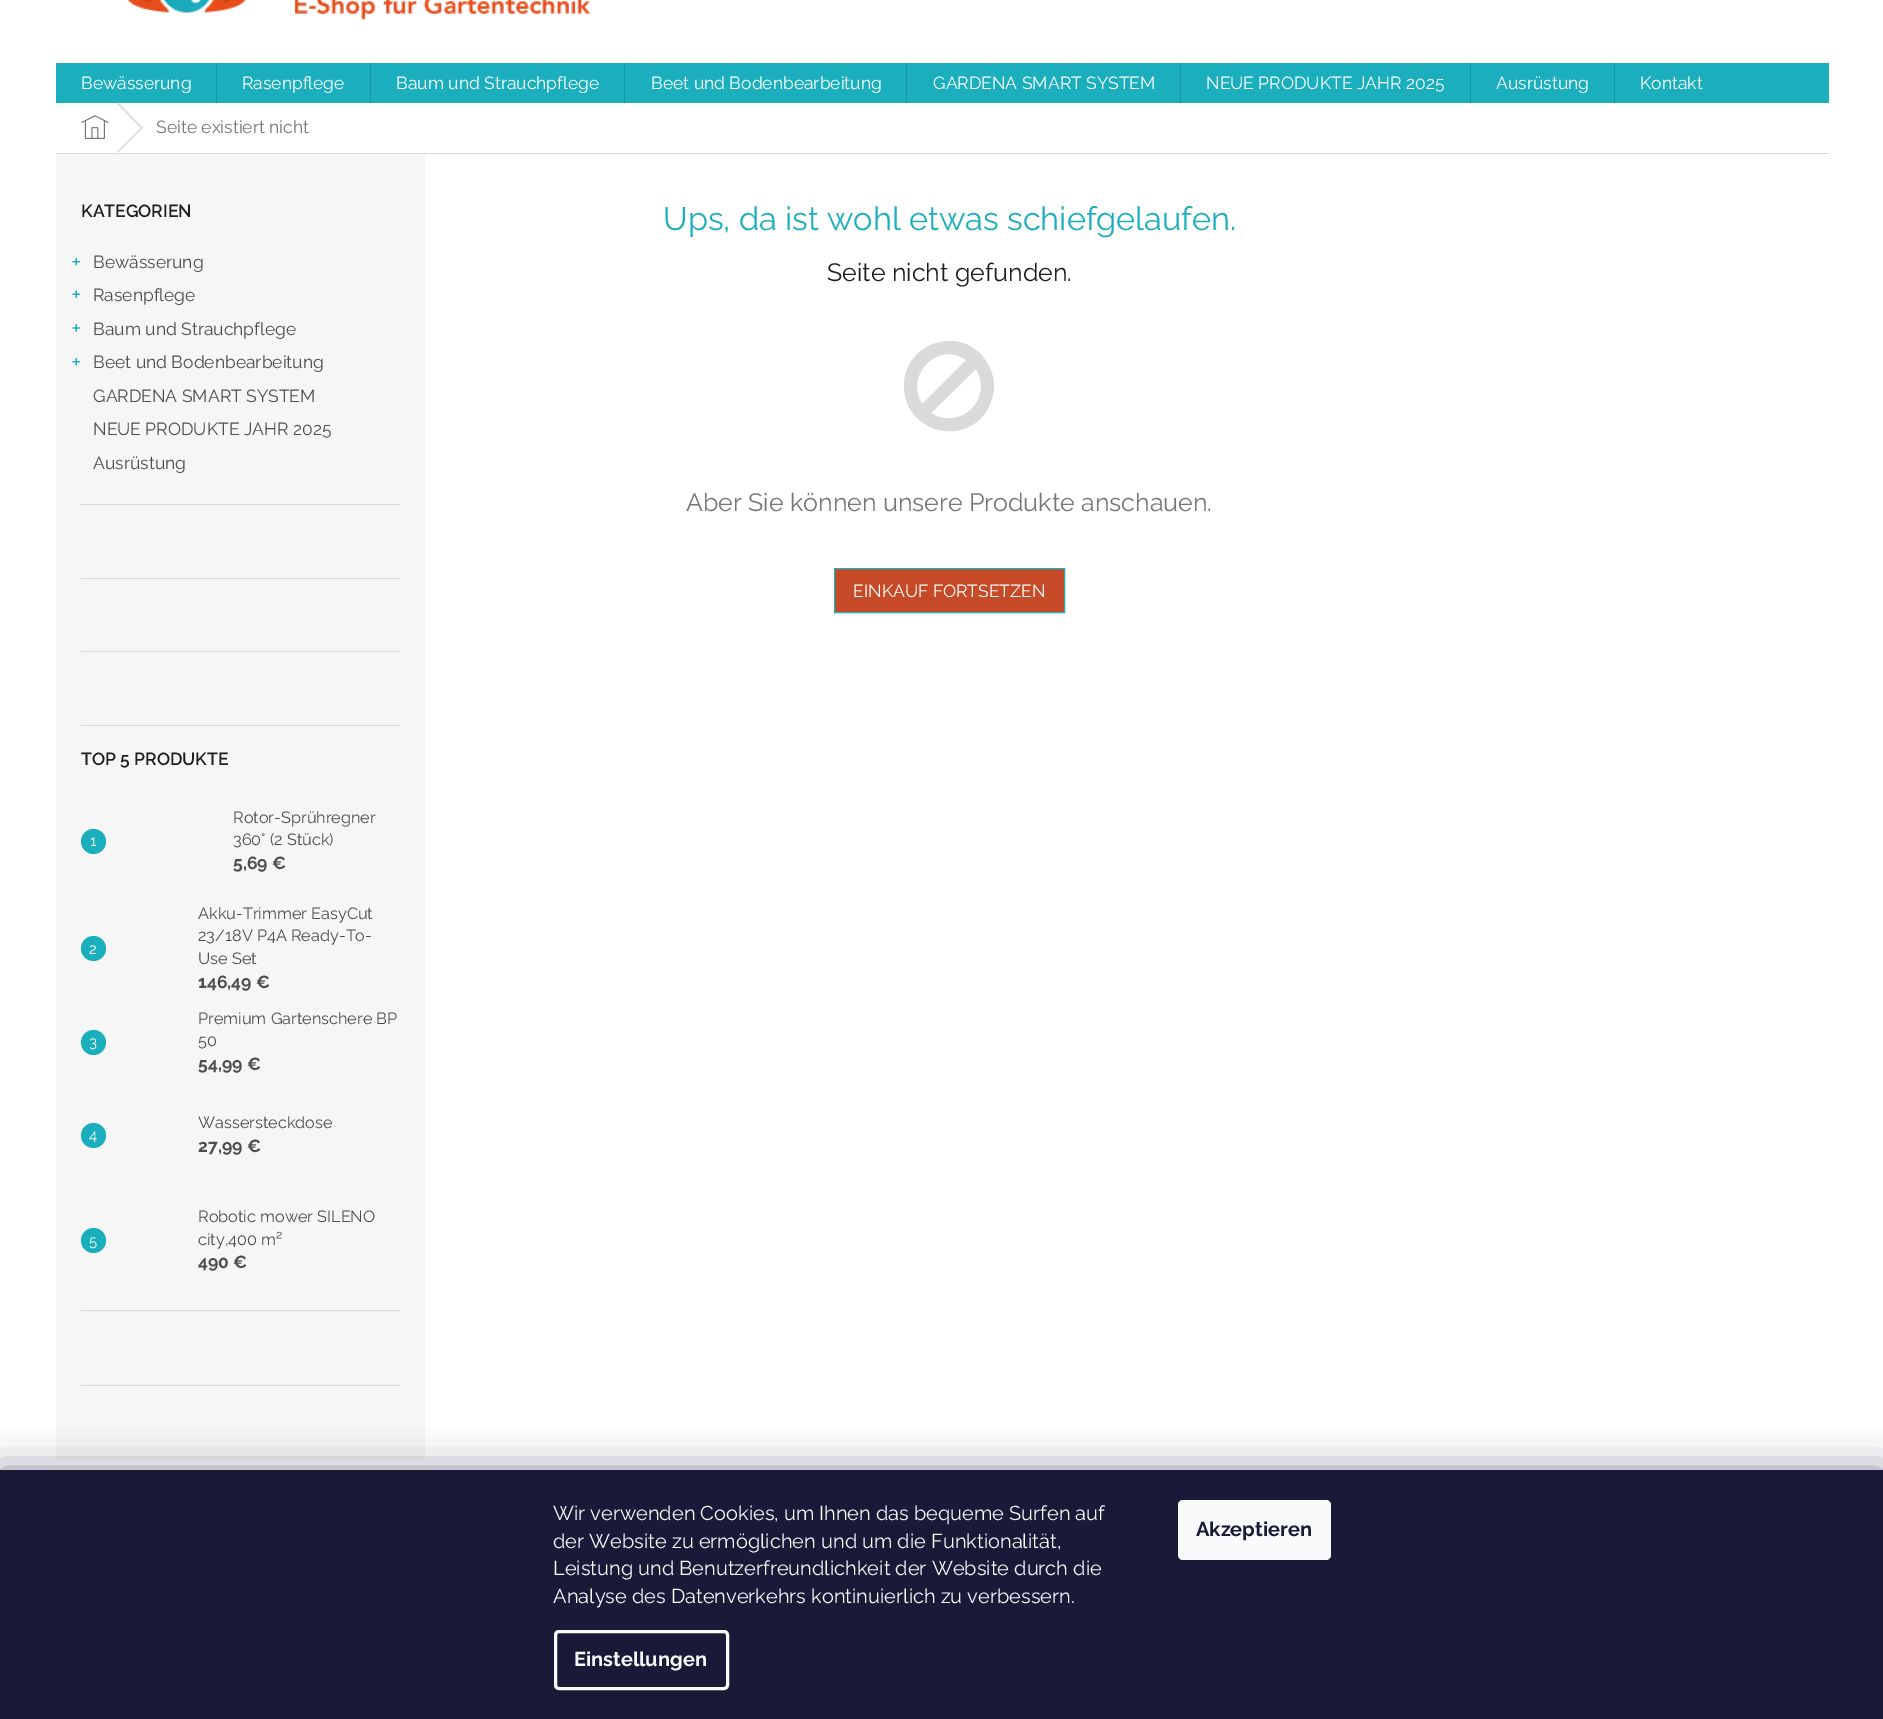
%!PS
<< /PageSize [1883 1719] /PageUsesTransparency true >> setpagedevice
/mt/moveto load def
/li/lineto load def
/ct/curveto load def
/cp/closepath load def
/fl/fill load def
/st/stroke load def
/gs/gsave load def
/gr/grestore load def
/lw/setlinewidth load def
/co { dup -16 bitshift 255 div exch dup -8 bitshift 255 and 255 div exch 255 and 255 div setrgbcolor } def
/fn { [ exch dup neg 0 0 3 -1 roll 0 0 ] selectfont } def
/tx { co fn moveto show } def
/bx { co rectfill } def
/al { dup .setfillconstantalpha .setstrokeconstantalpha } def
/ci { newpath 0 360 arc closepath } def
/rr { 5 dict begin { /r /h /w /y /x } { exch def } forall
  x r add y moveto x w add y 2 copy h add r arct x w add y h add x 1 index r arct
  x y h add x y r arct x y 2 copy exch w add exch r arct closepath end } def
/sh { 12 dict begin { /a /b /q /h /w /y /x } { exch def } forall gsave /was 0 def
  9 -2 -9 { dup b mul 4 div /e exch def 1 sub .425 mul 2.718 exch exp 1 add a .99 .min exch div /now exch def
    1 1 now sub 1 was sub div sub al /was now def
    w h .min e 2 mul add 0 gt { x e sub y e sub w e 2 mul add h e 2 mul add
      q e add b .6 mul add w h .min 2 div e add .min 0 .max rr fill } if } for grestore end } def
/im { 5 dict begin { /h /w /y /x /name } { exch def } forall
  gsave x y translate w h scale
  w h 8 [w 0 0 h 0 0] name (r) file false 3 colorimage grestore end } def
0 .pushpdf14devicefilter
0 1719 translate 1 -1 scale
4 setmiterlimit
0 0 1883 1719 16#FFFFFF bx
(media/1.raw) 127 0 464 21 im
56 63 1773 40 16#1BAFBE bx
216 63 1 40 16#1793A1 bx
370 63 1 40 16#1793A1 bx
624 63 1 40 16#1793A1 bx
906 63 1 40 16#1793A1 bx
1180 63 1 40 16#1793A1 bx
1470 63 1 40 16#1793A1 bx
1614 63 1 40 16#1793A1 bx
56 153 1773 1 16#DADADA bx
(media/2.raw) 81 115 28 24 im
117 103.5 mt 118 102.5 li 143 128 li 142 129 li cp fl
142 126.5 mt 143 127.5 li 118 152.5 li 117 151.5 li cp fl
56 154 369 1306 16#F6F6F6 bx
81 504 319 1 16#DADADA bx
(media/3.raw) 72 257 8 9 im
(media/4.raw) 72 290 8 8 im
(media/5.raw) 72 324 8 8 im
(media/3.raw) 72 357 8 9 im
81 578 319 1 16#DADADA bx
81 651 319 1 16#DADADA bx
81 725 319 1 16#DADADA bx
81 1310 319 1 16#DADADA bx
16#1BAFBE co
93.5 841.5 12.5 ci fl
93.5 948.5 12.5 ci fl
93.5 1042.5 12.5 ci fl
93.5 1135.5 12.5 ci fl
93.5 1240.5 12.5 ci fl
81 1385 319 1 16#DADADA bx
981 386 mt 981 380 979 374 976 369 ct 931 413 li 952 427 981 412 981 386 ct cp 922 404 mt 966 360 li 938 340 904 375 922 404 ct cp 994 386 mt 994 395 991 404 986 412 ct 961 448 904 430 904 386 ct 904 342 962 324 986 361 ct 991 369 994 377 994 386 ct cp fl
16#C64A27 co
834.5 568.5 mt 1064.5 568.5 li 1064.5 612.5 li 834.5 612.5 li cp gs fl gr
16#1BAFBE co
st
16#1B1939 co
0 1470 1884 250 0 19 .5 sh
0 1470 1883 249 16#1A1937 bx
16#F8FAFB co
3 lw
555.5 1631.5 172 57 3.5 rr st
1178 1500 153 60 5 rr fl
(Bewässerung) 81 89 /Raleway-Regular 17.5 16#FFFFFF tx
(Rasenpflege) 242 89 /Raleway-Regular 17.5 16#FFFFFF tx
(Baum und Strauchpflege) 396 89 /Raleway-Regular 17.5 16#FFFFFF tx
(Beet und Bodenbearbeitung) 651 89 /Raleway-Regular 17.5 16#FFFFFF tx
(GARDENA SMART SYSTEM) 933 89 /Raleway-Regular 17.5 16#FFFFFF tx
(NEUE PRODUKTE JAHR 2025) 1206 89 /Raleway-Regular 17.5 16#FFFFFF tx
(Ausrüstung) 1496 89 /Raleway-Regular 17.5 16#FFFFFF tx
(Kontakt) 1640 89 /Raleway-Regular 17.5 16#FFFFFF tx
(Seite existiert nicht) 156 133 /Raleway-Regular 17.5 16#767676 tx
(KATEGORIEN) 81 217 /Raleway-SemiBold 17.5 16#1F1F1F tx
(Bewässerung) 93 268 /Raleway-Regular 17.5 16#4D4D4D tx
(Rasenpflege) 93 301 /Raleway-Regular 17.5 16#4D4D4D tx
(Baum und Strauchpflege) 93 335 /Raleway-Regular 17.5 16#4D4D4D tx
(Beet und Bodenbearbeitung) 93 368 /Raleway-Regular 17.5 16#4D4D4D tx
(GARDENA SMART SYSTEM) 93 402 /Raleway-Regular 17.5 16#4D4D4D tx
(NEUE PRODUKTE JAHR 2025) 93 435 /Raleway-Regular 17.5 16#4D4D4D tx
(Ausrüstung) 93 469 /Raleway-Regular 17.5 16#4D4D4D tx
(TOP 5 PRODUKTE) 81 765 /Raleway-SemiBold 17.5 16#1F1F1F tx
(1) 90 846 /Raleway-Regular 15 16#FFFFFF tx
(Rotor-Sprühregner) 233 823 /Raleway-Regular 16.25 16#4D4D4D tx
(360° \(2 Stück\)) 233 845 /Raleway-Regular 16.25 16#4D4D4D tx
(5,69 €) 233 869 /Raleway-Bold 17.5 16#4D4D4D tx
(2) 89 954 /Raleway-Regular 15 16#FFFFFF tx
(Akku-Trimmer EasyCut) 198 919 /Raleway-Regular 16.25 16#4D4D4D tx
(23/18V P4A Ready-To-) 198 941 /Raleway-Regular 16.25 16#4D4D4D tx
(Use Set) 198 964 /Raleway-Regular 16.25 16#4D4D4D tx
(146,49 €) 198 988 /Raleway-Bold 17.5 16#4D4D4D tx
(3) 89 1047 /Raleway-Regular 15 16#FFFFFF tx
(Premium Gartenschere BP) 198 1024 /Raleway-Regular 16.25 16#4D4D4D tx
(50) 198 1046 /Raleway-Regular 16.25 16#4D4D4D tx
(54,99 €) 198 1070 /Raleway-Bold 17.5 16#4D4D4D tx
(4) 89 1140 /Raleway-Regular 15 16#FFFFFF tx
(Wassersteckdose) 198 1128 /Raleway-Regular 16.25 16#4D4D4D tx
(27,99 €) 198 1152 /Raleway-Bold 17.5 16#4D4D4D tx
(5) 89 1246 /Raleway-Regular 15 16#FFFFFF tx
(Robotic mower SILENO) 198 1222 /Raleway-Regular 16.25 16#4D4D4D tx
(city,400 m²) 198 1245 /Raleway-Regular 16.25 16#4D4D4D tx
(490 €) 198 1268 /Raleway-Bold 17.5 16#4D4D4D tx
(Ups, da ist wohl etwas schiefgelaufen.) 663 230 /Raleway-Regular 32.5 16#1BAFBE tx
(Seite nicht gefunden.) 827 281 /Raleway-Regular 25 16#1F1F1F tx
(Aber Sie können unsere Produkte anschauen.) 686 511 /Raleway-Regular 25 16#767676 tx
(EINKAUF FORTSETZEN) 853 597 /Raleway-Regular 17.5 16#FFFFFF tx
(Wir verwenden Cookies, um Ihnen das bequeme Surfen auf) 553 1520 /Raleway-Regular 20 16#F8FAFB tx
(der Website zu ermöglichen und um die Funktionalität,) 553 1548 /Raleway-Regular 20 16#F8FAFB tx
(Leistung und Benutzerfreundlichkeit der Website durch die) 553 1575 /Raleway-Regular 20 16#F8FAFB tx
(Analyse des Datenverkehrs kontinuierlich zu verbessern.) 553 1603 /Raleway-Regular 20 16#F8FAFB tx
(Einstellungen) 574 1666 /Raleway-Bold 20 16#F8FAFB tx
(Akzeptieren) 1196 1536 /Raleway-Bold 20 16#1A1937 tx
.poppdf14devicefilter showpage
